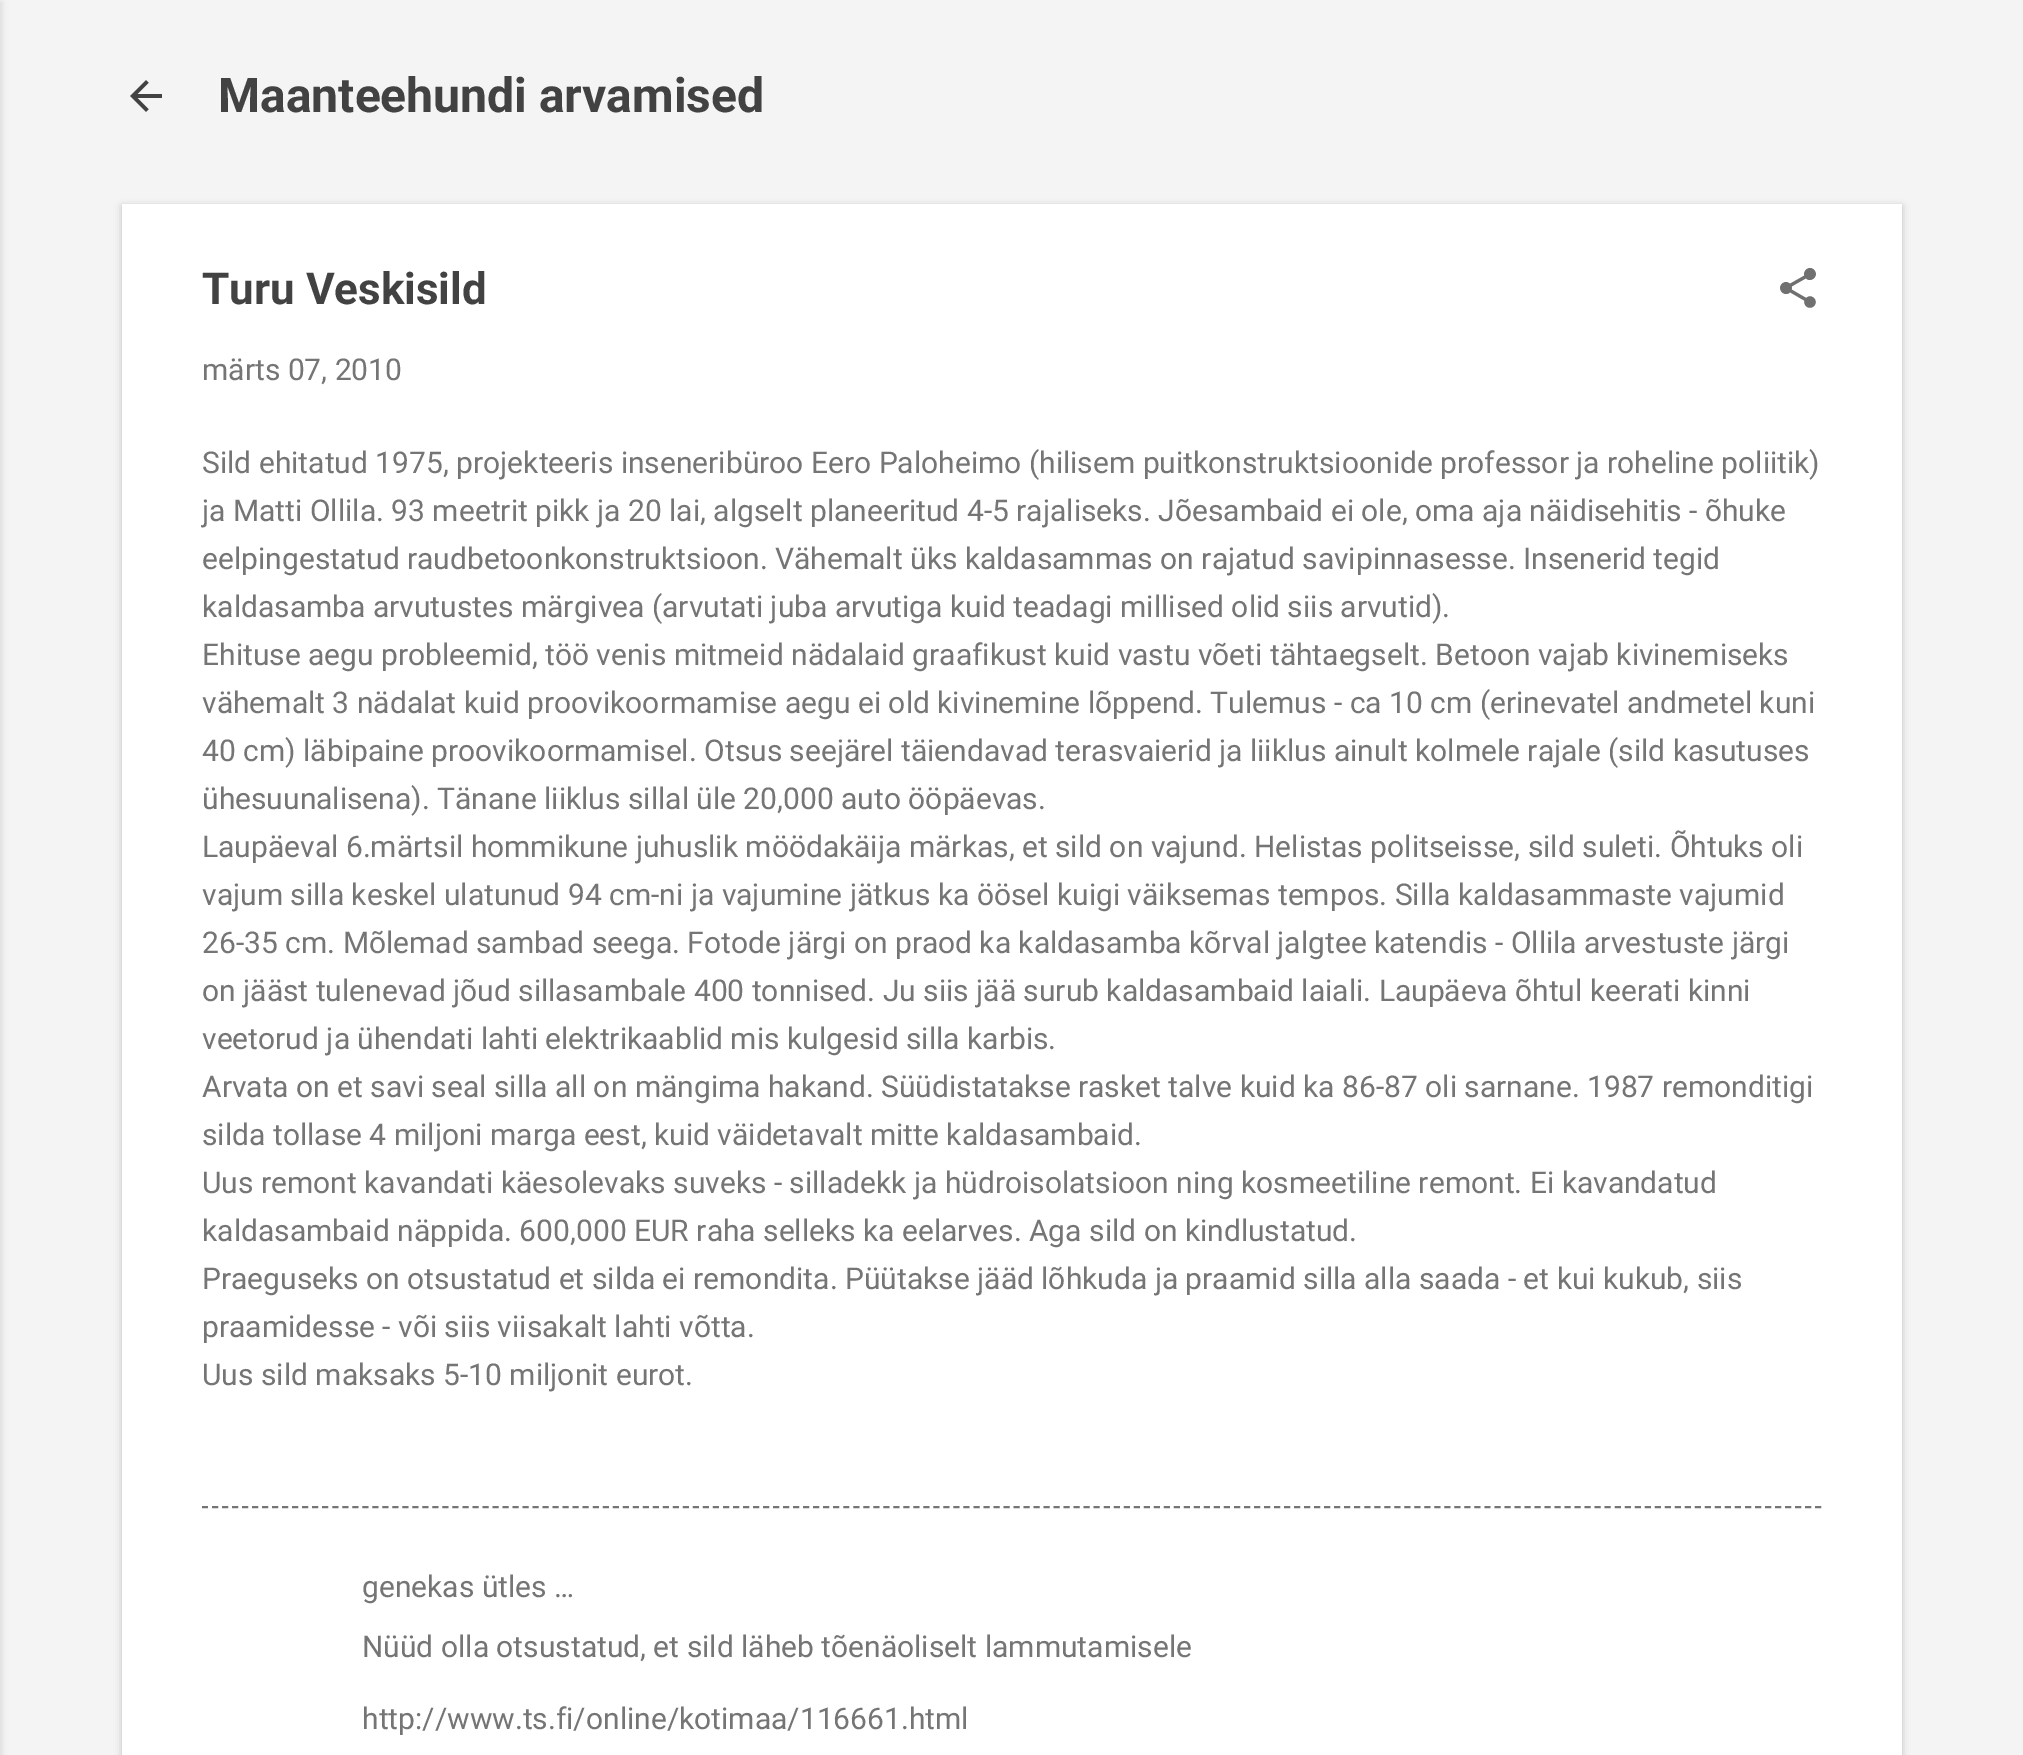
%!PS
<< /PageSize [2023 1755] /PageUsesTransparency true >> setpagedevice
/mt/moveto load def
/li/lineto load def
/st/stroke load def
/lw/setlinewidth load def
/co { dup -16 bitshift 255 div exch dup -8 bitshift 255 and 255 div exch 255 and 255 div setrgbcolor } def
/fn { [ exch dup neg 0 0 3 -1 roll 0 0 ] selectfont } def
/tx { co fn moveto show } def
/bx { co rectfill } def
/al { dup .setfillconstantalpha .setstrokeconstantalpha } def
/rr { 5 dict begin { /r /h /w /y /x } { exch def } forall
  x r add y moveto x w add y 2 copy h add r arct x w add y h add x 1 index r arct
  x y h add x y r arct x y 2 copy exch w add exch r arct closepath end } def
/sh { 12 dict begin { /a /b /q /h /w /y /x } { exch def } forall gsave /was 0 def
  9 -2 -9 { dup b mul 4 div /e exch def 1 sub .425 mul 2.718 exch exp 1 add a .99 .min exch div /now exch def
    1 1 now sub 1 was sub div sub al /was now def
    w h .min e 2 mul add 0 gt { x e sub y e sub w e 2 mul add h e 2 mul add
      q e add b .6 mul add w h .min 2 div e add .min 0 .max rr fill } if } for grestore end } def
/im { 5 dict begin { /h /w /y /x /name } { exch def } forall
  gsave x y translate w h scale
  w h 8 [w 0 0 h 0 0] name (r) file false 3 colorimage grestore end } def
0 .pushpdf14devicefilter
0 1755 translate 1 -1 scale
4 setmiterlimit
0 0 2023 1755 16#F4F4F4 bx
16#000000 co
-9 2 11 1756 0 3 .1 sh
(media/1.raw) 130 80 32 32 im
16#3C4043 co
122 206 1780 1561 0 4 .3 sh
122 204 1780 1551 16#FFFFFF bx
(media/2.raw) 1780 268 36 40 im
16#757575 co
2 lw
[6 4.02] 0 setdash
202 1507 mt 1822 1507 li st
(Maanteehundi arvamised) 218 112 /Roboto-Bold 48 16#424242 tx
(Turu Veskisild) 202 304 /Roboto-Bold 44 16#424242 tx
(märts 07, 2010) 202 380 /Roboto-Regular 30 16#757575 tx
(Sild ehitatud 1975, projekteeris inseneribüroo Eero Paloheimo \(hilisem puitkonstruktsioonide professor ja roheline poliitik\)) 202 473 /Roboto-Regular 30 16#757575 tx
(ja Matti Ollila. 93 meetrit pikk ja 20 lai, algselt planeeritud 4-5 rajaliseks. Jõesambaid ei ole, oma aja näidisehitis - õhuke) 202 521 /Roboto-Regular 30 16#757575 tx
(eelpingestatud raudbetoonkonstruktsioon. Vähemalt üks kaldasammas on rajatud savipinnasesse. Insenerid tegid) 202 569 /Roboto-Regular 30 16#757575 tx
(kaldasamba arvutustes märgivea \(arvutati juba arvutiga kuid teadagi millised olid siis arvutid\).) 202 617 /Roboto-Regular 30 16#757575 tx
(Ehituse aegu probleemid, töö venis mitmeid nädalaid graafikust kuid vastu võeti tähtaegselt. Betoon vajab kivinemiseks) 202 665 /Roboto-Regular 30 16#757575 tx
(vähemalt 3 nädalat kuid proovikoormamise aegu ei old kivinemine lõppend. Tulemus - ca 10 cm \(erinevatel andmetel kuni) 202 713 /Roboto-Regular 30 16#757575 tx
(40 cm\) läbipaine proovikoormamisel. Otsus seejärel täiendavad terasvaierid ja liiklus ainult kolmele rajale \(sild kasutuses) 202 761 /Roboto-Regular 30 16#757575 tx
(ühesuunalisena\). Tänane liiklus sillal üle 20,000 auto ööpäevas.) 202 809 /Roboto-Regular 30 16#757575 tx
(Laupäeval 6.märtsil hommikune juhuslik möödakäija märkas, et sild on vajund. Helistas politseisse, sild suleti. Õhtuks oli) 202 857 /Roboto-Regular 30 16#757575 tx
(vajum silla keskel ulatunud 94 cm-ni ja vajumine jätkus ka öösel kuigi väiksemas tempos. Silla kaldasammaste vajumid) 202 905 /Roboto-Regular 30 16#757575 tx
(26-35 cm. Mõlemad sambad seega. Fotode järgi on praod ka kaldasamba kõrval jalgtee katendis - Ollila arvestuste järgi) 202 953 /Roboto-Regular 30 16#757575 tx
(on jääst tulenevad jõud sillasambale 400 tonnised. Ju siis jää surub kaldasambaid laiali. Laupäeva õhtul keerati kinni) 202 1001 /Roboto-Regular 30 16#757575 tx
(veetorud ja ühendati lahti elektrikaablid mis kulgesid silla karbis.) 202 1049 /Roboto-Regular 30 16#757575 tx
(Arvata on et savi seal silla all on mängima hakand. Süüdistatakse rasket talve kuid ka 86-87 oli sarnane. 1987 remonditigi) 202 1097 /Roboto-Regular 30 16#757575 tx
(silda tollase 4 miljoni marga eest, kuid väidetavalt mitte kaldasambaid.) 202 1145 /Roboto-Regular 30 16#757575 tx
(Uus remont kavandati käesolevaks suveks - silladekk ja hüdroisolatsioon ning kosmeetiline remont. Ei kavandatud) 202 1193 /Roboto-Regular 30 16#757575 tx
(kaldasambaid näppida. 600,000 EUR raha selleks ka eelarves. Aga sild on kindlustatud.) 202 1241 /Roboto-Regular 30 16#757575 tx
(Praeguseks on otsustatud et silda ei remondita. Püütakse jääd lõhkuda ja praamid silla alla saada - et kui kukub, siis) 202 1289 /Roboto-Regular 30 16#757575 tx
(praamidesse - või siis viisakalt lahti võtta.) 202 1337 /Roboto-Regular 30 16#757575 tx
(Uus sild maksaks 5-10 miljonit eurot.) 202 1385 /Roboto-Regular 30 16#757575 tx
(genekas ütles …) 362 1597 /Roboto-Regular 30 16#757575 tx
(Nüüd olla otsustatud, et sild läheb tõenäoliselt lammutamisele) 362 1657 /Roboto-Regular 30 16#757575 tx
(http://www.ts.fi/online/kotimaa/116661.html) 362 1729 /Roboto-Regular 30 16#757575 tx
.poppdf14devicefilter showpage
